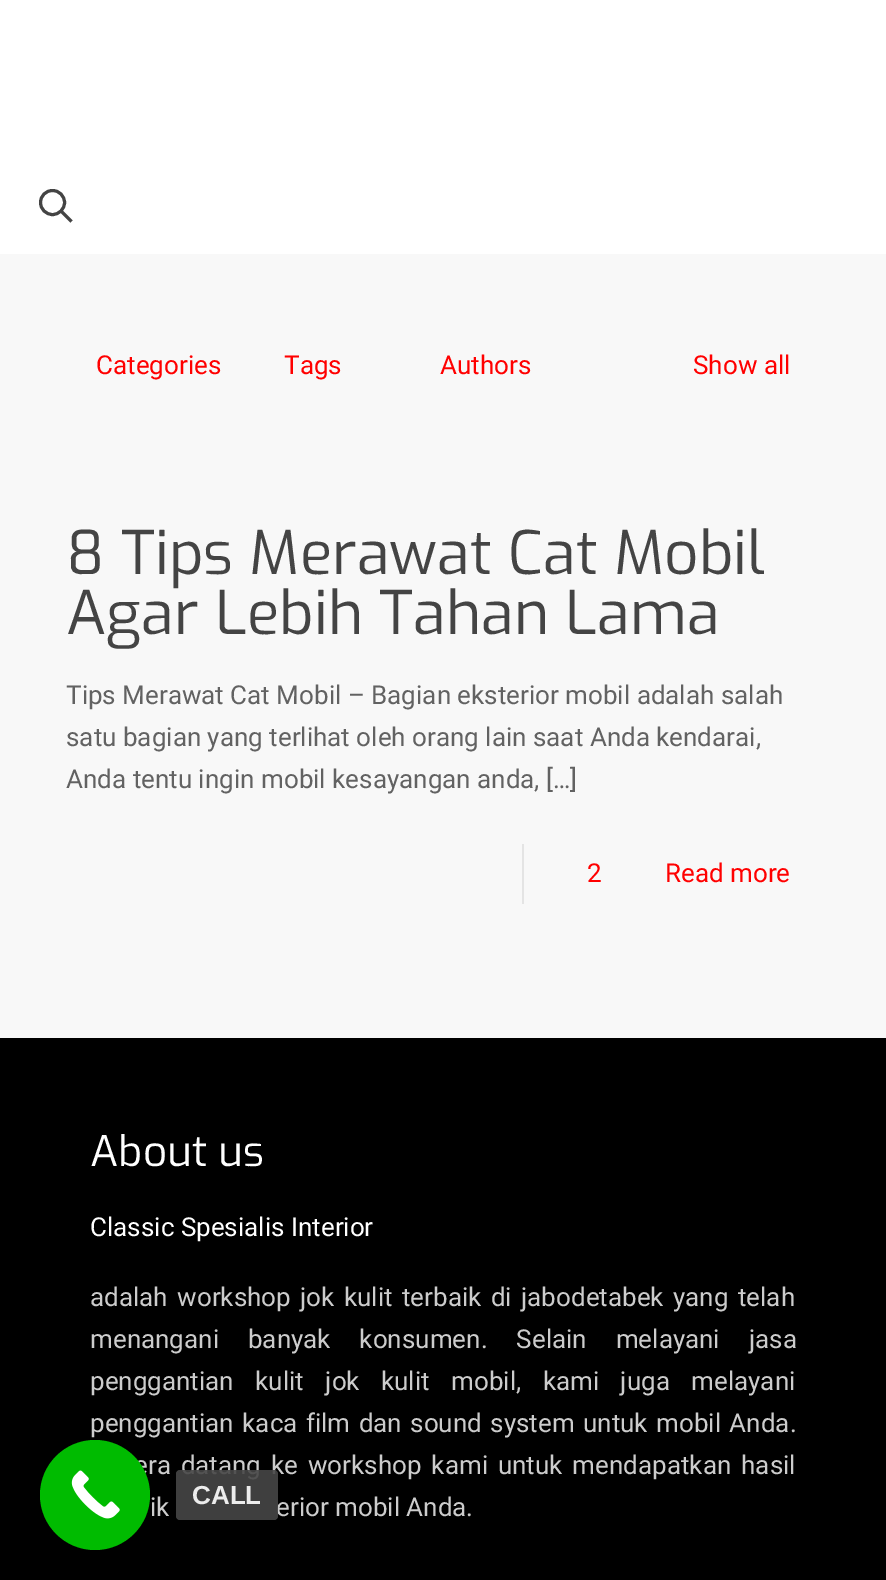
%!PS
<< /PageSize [886 1580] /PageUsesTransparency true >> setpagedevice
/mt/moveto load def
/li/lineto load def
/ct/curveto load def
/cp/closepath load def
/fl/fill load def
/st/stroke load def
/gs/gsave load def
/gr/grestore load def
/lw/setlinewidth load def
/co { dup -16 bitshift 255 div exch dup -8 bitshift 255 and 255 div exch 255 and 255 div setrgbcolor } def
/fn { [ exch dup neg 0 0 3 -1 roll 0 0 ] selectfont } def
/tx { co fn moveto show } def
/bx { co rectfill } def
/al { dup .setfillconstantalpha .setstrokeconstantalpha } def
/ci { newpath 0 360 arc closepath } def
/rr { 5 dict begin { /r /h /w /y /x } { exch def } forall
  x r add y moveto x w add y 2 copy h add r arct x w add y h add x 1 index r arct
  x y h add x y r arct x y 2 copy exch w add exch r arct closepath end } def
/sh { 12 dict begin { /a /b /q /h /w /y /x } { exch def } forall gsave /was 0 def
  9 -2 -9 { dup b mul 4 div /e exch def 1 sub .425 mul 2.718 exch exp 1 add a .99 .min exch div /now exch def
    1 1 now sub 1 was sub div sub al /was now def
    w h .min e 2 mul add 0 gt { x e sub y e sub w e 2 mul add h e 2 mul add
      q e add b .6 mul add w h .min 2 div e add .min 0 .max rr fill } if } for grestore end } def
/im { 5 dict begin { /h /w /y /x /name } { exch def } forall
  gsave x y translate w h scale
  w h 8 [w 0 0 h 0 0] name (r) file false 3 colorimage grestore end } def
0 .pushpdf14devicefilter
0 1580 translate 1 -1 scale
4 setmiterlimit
0 0 886 1580 16#F8F8F8 bx
0 0 886 254 16#FFFFFF bx
16#444444 co
3 lw
52.5 202.5 12 ci st
61 211 mt 71.5 221.5 li st
522 844 2 60 16#E4E4E4 bx
0 1038 886 542 16#000000 bx
40 1446 110 110 55 6 .3 sh
gs
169 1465 mt 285 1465 li 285 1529 li 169 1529 li cp 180 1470 mt 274 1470 li 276 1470 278 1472 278 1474 ct 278 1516 li 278 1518 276 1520 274 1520 ct 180 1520 li 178 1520 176 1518 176 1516 ct 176 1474 li 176 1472 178 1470 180 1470 ct cp eoclip newpath
176 1472 102 50 4 2 .15 sh
gr
(Categories) 96 374 /Roboto-Regular 26 16#FF0000 tx
(Tags) 284 374 /Roboto-Regular 26 16#FF0000 tx
(Authors) 440 374 /Roboto-Regular 26 16#FF0000 tx
(Show all) 693 374 /Roboto-Regular 26 16#FF0000 tx
(8 Tips Merawat Cat Mobil) 66 574 /Exo-Regular 60 16#444444 tx
(Agar Lebih Tahan Lama) 66 634 /Exo-Regular 60 16#444444 tx
(Tips Merawat Cat Mobil – Bagian eksterior mobil adalah salah) 66 704 /Roboto-Regular 26 16#626262 tx
(satu bagian yang terlihat oleh orang lain saat Anda kendarai,) 66 746 /Roboto-Regular 26 16#626262 tx
(Anda tentu ingin mobil kesayangan anda, […]) 66 788 /Roboto-Regular 26 16#626262 tx
(2) 587 882 /Roboto-Regular 26 16#FF0000 tx
(Read more) 665 882 /Roboto-Regular 26 16#FF0000 tx
(About us) 90 1166 /Exo-Regular 42 16#FFFFFF tx
(Classic Spesialis Interior) 90 1236 /Roboto-Regular 26 16#FFFFFF tx
16#CCCCCC co
90 1306 mt 3 0 32 (adalah workshop jok kulit terbaik di jabodetabek yang telah) widthshow
90 1348 mt 22.5 0 32 (menangani banyak konsumen. Selain melayani jasa) widthshow
90 1390 mt 15 0 32 (penggantian kulit jok kulit mobil, kami juga melayani) widthshow
90 1432 mt 2 0 32 (penggantian kaca film dan sound system untuk mobil Anda.) widthshow
134 1474 mt 3.5 0 32 (era datang ke workshop kami untuk mendapatkan hasil) widthshow
(ik) 150 1516 /Roboto-Regular 26 16#CCCCCC tx
(erior mobil Anda.) 276 1516 /Roboto-Regular 26 16#CCCCCC tx
16#00BB00 co
95 1495 55 ci fl
(media/1.raw) 71 1470 49 49 im
0.9 al
16#464646 co
176 1470 102 50 4 rr fl
1 al
(CALL) 192 1504 /LiberationSans-Bold 26 16#ECECEC tx
.poppdf14devicefilter showpage
